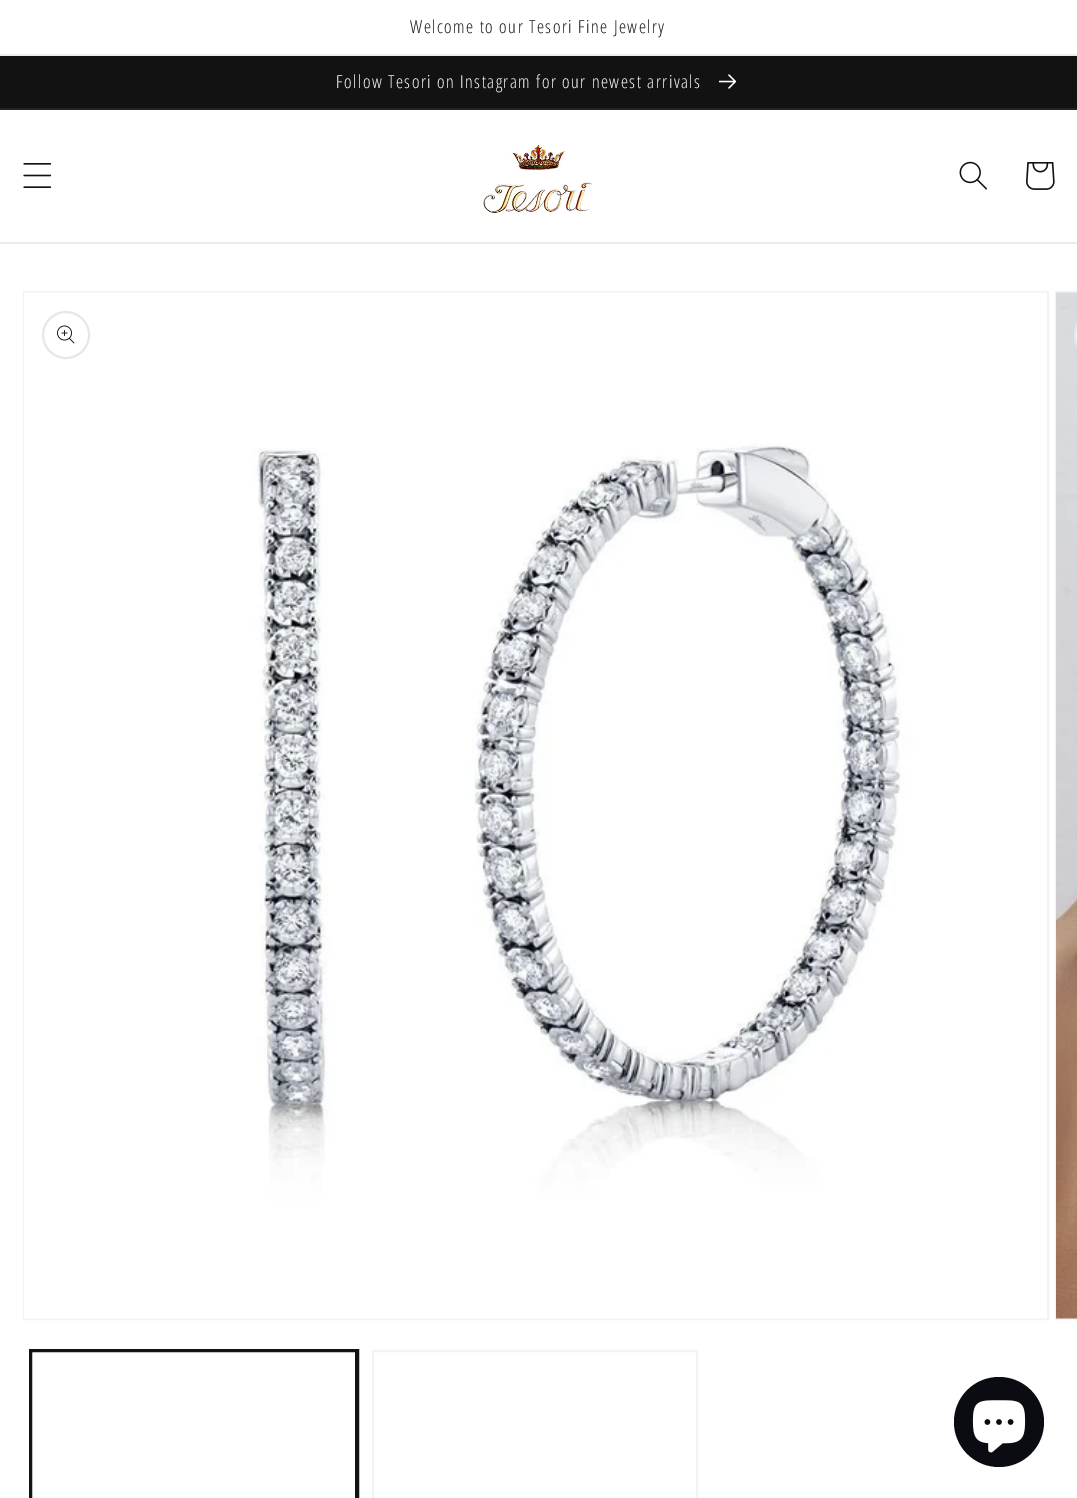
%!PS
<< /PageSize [1077 1498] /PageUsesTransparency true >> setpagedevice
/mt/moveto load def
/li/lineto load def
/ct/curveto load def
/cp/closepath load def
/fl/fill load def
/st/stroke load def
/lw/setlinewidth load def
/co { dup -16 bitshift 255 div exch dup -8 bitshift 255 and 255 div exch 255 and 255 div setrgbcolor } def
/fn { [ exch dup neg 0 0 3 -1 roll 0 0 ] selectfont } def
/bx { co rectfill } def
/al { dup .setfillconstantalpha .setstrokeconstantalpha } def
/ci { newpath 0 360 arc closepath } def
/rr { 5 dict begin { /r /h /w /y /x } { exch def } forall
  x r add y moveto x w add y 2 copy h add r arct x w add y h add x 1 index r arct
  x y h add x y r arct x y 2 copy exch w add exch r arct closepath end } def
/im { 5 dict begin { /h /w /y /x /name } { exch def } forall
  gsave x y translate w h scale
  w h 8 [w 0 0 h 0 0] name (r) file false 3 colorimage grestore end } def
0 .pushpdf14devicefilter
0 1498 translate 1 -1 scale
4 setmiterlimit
0 0 1077 1498 16#FFFFFF bx
0 54 1077 2 16#ECECEC bx
0 56 1077 52 16#121212 bx
0 108 1077 2 16#252525 bx
(media/1.raw) 719 74 18 15 im
0 242 1077 2 16#ECECEC bx
(media/2.raw) 23 163 29 25 im
(media/3.raw) 483 144 110 70 im
(media/4.raw) 959 161 28 29 im
(media/5.raw) 1026 162 29 28 im
16#F3F3F3 co
2 lw
24 292 1024 1027 rectstroke
(media/6.raw) 24 292 1023 1027 im
16#E7E7E7 co
66 335 23 ci st
(media/7.raw) 57 325 18 19 im
16#F3F3F3 co
1056 292 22 1027 rectstroke
(media/8.raw) 1056 292 21 1027 im
16#FFFFFF co
1098 311 mt 1077 311 li 1077 359 li 1098 359 li 1084.5 359 1074 348.5 1074 335 ct 1074 321.5 1084.5 311 1098 311 ct cp fl
0.1 al
16#121212 co
1075 312 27 46 23 rr st
1 al
30 1350 328 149 rectstroke
31 1351 325 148 rectstroke
16#F3F3F3 co
373 1351 324 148 rectstroke
16#0B0B12 co
999 1422 45 ci fl
(media/9.raw) 972 1400 54 53 im
/OpenSansCondensed-Light 18 fn
16#121212 co
410 33 mt 1.5 0 (Welcome to our Tesori Fine Jewelry) ashow
16#FFFFFF co
336 88 mt 1.5 0 (Follow Tesori on Instagram for our newest arrivals) ashow
.poppdf14devicefilter showpage
